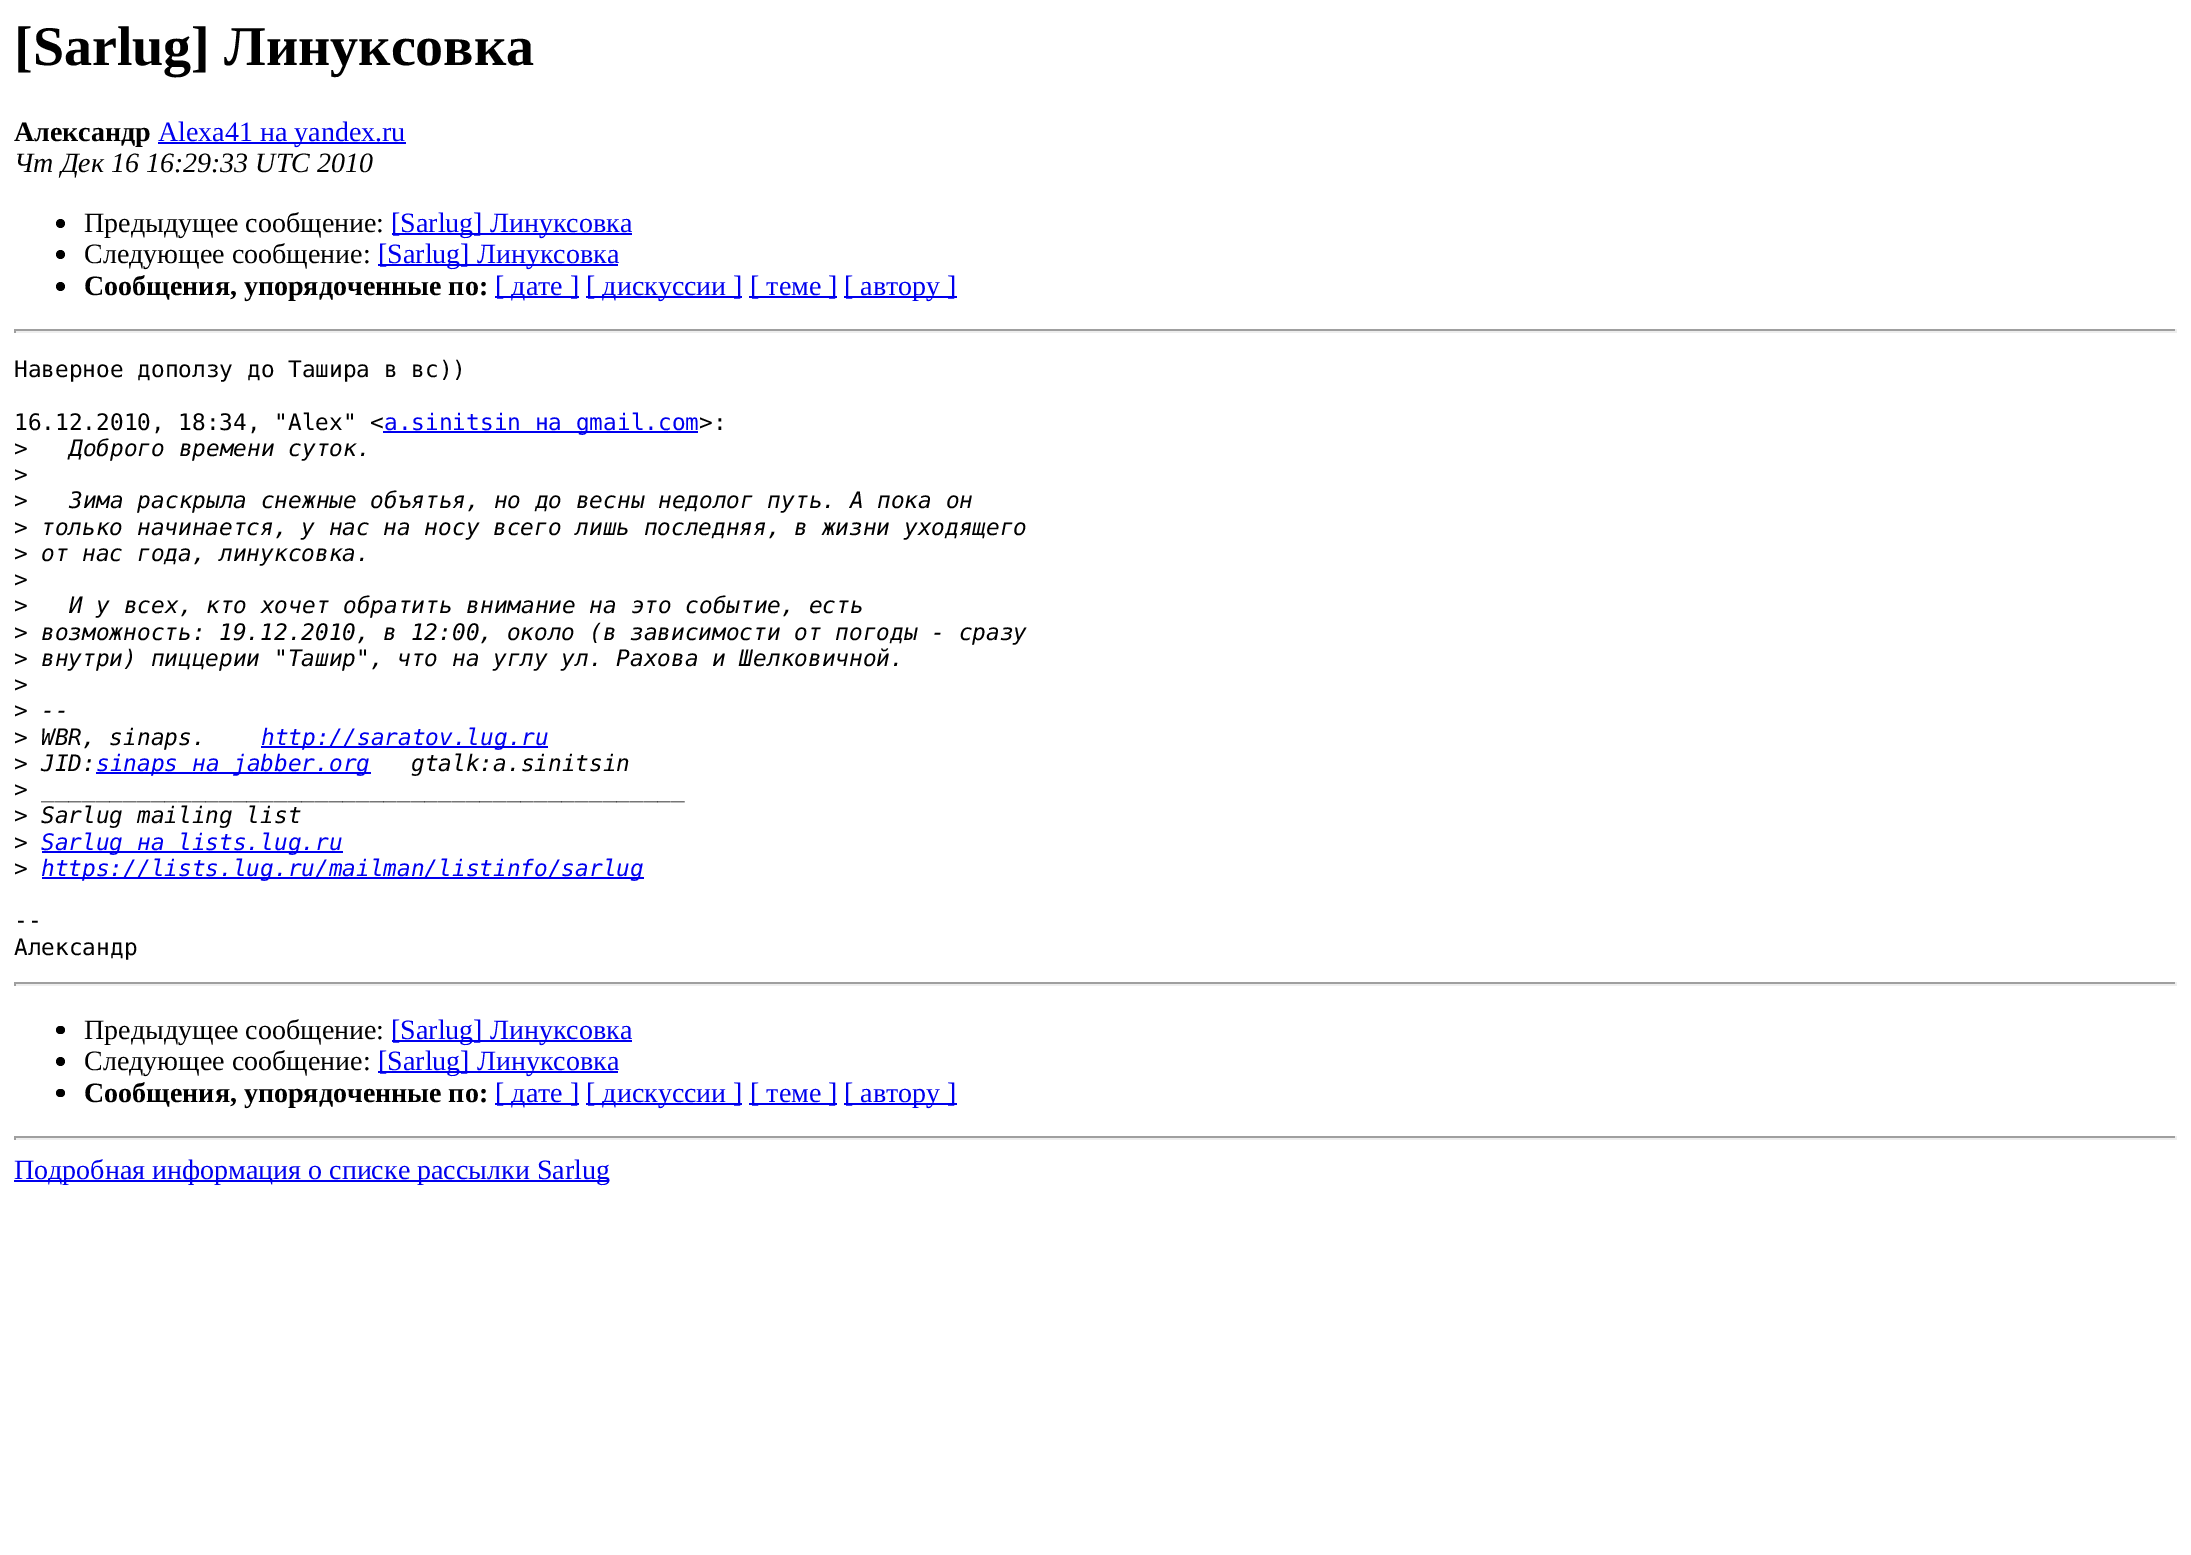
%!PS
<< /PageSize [2191 1555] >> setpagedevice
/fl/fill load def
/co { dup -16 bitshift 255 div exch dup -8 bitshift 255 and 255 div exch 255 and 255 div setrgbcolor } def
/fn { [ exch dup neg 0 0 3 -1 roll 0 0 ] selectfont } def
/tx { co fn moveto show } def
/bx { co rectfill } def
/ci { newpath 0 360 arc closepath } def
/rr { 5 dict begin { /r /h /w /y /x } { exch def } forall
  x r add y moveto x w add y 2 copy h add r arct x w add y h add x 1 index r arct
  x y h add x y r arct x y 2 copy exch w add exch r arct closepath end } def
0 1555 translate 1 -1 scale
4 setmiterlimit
0 0 2191 1555 16#FFFFFF bx
158 142 248 2 16#0000EE bx
16#000000 co
60.5 223.5 4.5 ci fl
392 233 240 2 16#0000EE bx
16#000000 co
60.5 254.5 4.5 ci fl
378 264 240 2 16#0000EE bx
16#000000 co
60.5 286.5 4.5 ci fl
495 296 84 2 16#0000EE bx
586 296 156 2 16#0000EE bx
749 296 88 2 16#0000EE bx
844 296 113 2 16#0000EE bx
14 329 2163 2 16#9F9F9F bx
2175 329 2 4 16#EEEEEE bx
14 331 2163 2 16#EEEEEE bx
14 329 2 4 16#9F9F9F bx
383 431 315 2 16#0000EE bx
261 746 287 2 16#0000EE bx
96 772 275 2 16#0000EE bx
42 851 301 2 16#0000EE bx
42 877 602 2 16#0000EE bx
14 982 2163 2 16#9F9F9F bx
2175 982 2 4 16#EEEEEE bx
14 984 2163 2 16#EEEEEE bx
14 982 2 4 16#9F9F9F bx
16#000000 co
56 1026 9 8 4 rr fl
392 1040 240 2 16#0000EE bx
16#000000 co
60.5 1061.5 4.5 ci fl
378 1071 240 2 16#0000EE bx
16#000000 co
56 1089 9 8 4 rr fl
495 1103 84 2 16#0000EE bx
586 1103 156 2 16#0000EE bx
749 1103 88 2 16#0000EE bx
844 1103 113 2 16#0000EE bx
14 1136 2163 2 16#9F9F9F bx
2175 1136 2 4 16#EEEEEE bx
14 1138 2163 2 16#EEEEEE bx
14 1136 2 4 16#9F9F9F bx
14 1180 595 2 16#0000EE bx
([Sarlug] Линуксовка) 14 65 /LiberationSerif-Bold 56 16#000000 tx
(Александр) 14 141 /LiberationSerif-Bold 28 16#000000 tx
(Alexa41 на yandex.ru) 158 141 /LiberationSerif-Regular 28 16#0000EE tx
(Чт Дек 16 16:29:33 UTC 2010) 14 172 /LiberationSerif-Italic 28 16#000000 tx
(Предыдущее сообщение:) 84 232 /LiberationSerif-Regular 28 16#000000 tx
([Sarlug] Линуксовка) 391 232 /LiberationSerif-Regular 28 16#0000EE tx
(Следующее сообщение:) 84 263 /LiberationSerif-Regular 28 16#000000 tx
([Sarlug] Линуксовка) 378 263 /LiberationSerif-Regular 28 16#0000EE tx
(Сообщения, упорядоченные по:) 84 295 /LiberationSerif-Bold 28 16#000000 tx
([ дате ]) 495 295 /LiberationSerif-Regular 28 16#0000EE tx
([ дискуссии ]) 586 295 /LiberationSerif-Regular 28 16#0000EE tx
([ теме ]) 750 295 /LiberationSerif-Regular 28 16#0000EE tx
([ автору ]) 844 295 /LiberationSerif-Regular 28 16#0000EE tx
(Наверное доползу до Ташира в вс\)\)) 14 377 /DejaVuSansMono-Regular 22.75 16#000000 tx
(16.12.2010, 18:34, "Alex" <) 14 430 /DejaVuSansMono-Regular 22.75 16#000000 tx
(a.sinitsin на gmail.com) 384 430 /DejaVuSansMono-Regular 22.75 16#0000EE tx
(>:) 699 430 /DejaVuSansMono-Regular 22.75 16#000000 tx
(>) 14 456 /DejaVuSansMono-Regular 22.75 16#000000 tx
(Доброго времени суток.) 69 456 /DejaVuSansMono-Italic 22.75 16#000000 tx
(>) 14 482 /DejaVuSansMono-Regular 22.75 16#000000 tx
(>) 14 508 /DejaVuSansMono-Regular 22.75 16#000000 tx
(Зима раскрыла снежные объятья, но до весны недолог путь. А пока он) 69 508 /DejaVuSansMono-Italic 22.75 16#000000 tx
(>) 14 535 /DejaVuSansMono-Regular 22.75 16#000000 tx
(только начинается, у нас на носу всего лишь последняя, в жизни уходящего) 41 535 /DejaVuSansMono-Italic 22.75 16#000000 tx
(>) 14 561 /DejaVuSansMono-Regular 22.75 16#000000 tx
(от нас года, линуксовка.) 41 561 /DejaVuSansMono-Italic 22.75 16#000000 tx
(>) 14 587 /DejaVuSansMono-Regular 22.75 16#000000 tx
(>) 14 613 /DejaVuSansMono-Regular 22.75 16#000000 tx
(И у всех, кто хочет обратить внимание на это событие, есть) 69 613 /DejaVuSansMono-Italic 22.75 16#000000 tx
(>) 14 640 /DejaVuSansMono-Regular 22.75 16#000000 tx
(возможность: 19.12.2010, в 12:00, около \(в зависимости от погоды - сразу) 41 640 /DejaVuSansMono-Italic 22.75 16#000000 tx
(>) 14 666 /DejaVuSansMono-Regular 22.75 16#000000 tx
(внутри\) пиццерии "Ташир", что на углу ул. Рахова и Шелковичной.) 41 666 /DejaVuSansMono-Italic 22.75 16#000000 tx
(>) 14 692 /DejaVuSansMono-Regular 22.75 16#000000 tx
(>) 14 718 /DejaVuSansMono-Regular 22.75 16#000000 tx
(--) 41 718 /DejaVuSansMono-Italic 22.75 16#000000 tx
(>) 14 745 /DejaVuSansMono-Regular 22.75 16#000000 tx
(WBR, sinaps.) 41 745 /DejaVuSansMono-Italic 22.75 16#000000 tx
(http://saratov.lug.ru) 261 745 /DejaVuSansMono-Italic 22.75 16#0000EE tx
(>) 14 771 /DejaVuSansMono-Regular 22.75 16#000000 tx
(JID:) 41 771 /DejaVuSansMono-Italic 22.75 16#000000 tx
(sinaps на jabber.org) 96 771 /DejaVuSansMono-Italic 22.75 16#0000EE tx
(gtalk:a.sinitsin) 411 771 /DejaVuSansMono-Italic 22.75 16#000000 tx
(>) 14 797 /DejaVuSansMono-Regular 22.75 16#000000 tx
(_______________________________________________) 41 797 /DejaVuSansMono-Italic 22.75 16#000000 tx
(>) 14 823 /DejaVuSansMono-Regular 22.75 16#000000 tx
(Sarlug mailing list) 41 823 /DejaVuSansMono-Italic 22.75 16#000000 tx
(>) 14 850 /DejaVuSansMono-Regular 22.75 16#000000 tx
(Sarlug на lists.lug.ru) 41 850 /DejaVuSansMono-Italic 22.75 16#0000EE tx
(>) 14 876 /DejaVuSansMono-Regular 22.75 16#000000 tx
(https://lists.lug.ru/mailman/listinfo/sarlug) 41 876 /DejaVuSansMono-Italic 22.75 16#0000EE tx
(--) 14 928 /DejaVuSansMono-Regular 22.75 16#000000 tx
(Александр) 14 955 /DejaVuSansMono-Regular 22.75 16#000000 tx
(Предыдущее сообщение:) 84 1039 /LiberationSerif-Regular 28 16#000000 tx
([Sarlug] Линуксовка) 391 1039 /LiberationSerif-Regular 28 16#0000EE tx
(Следующее сообщение:) 84 1070 /LiberationSerif-Regular 28 16#000000 tx
([Sarlug] Линуксовка) 378 1070 /LiberationSerif-Regular 28 16#0000EE tx
(Сообщения, упорядоченные по:) 84 1102 /LiberationSerif-Bold 28 16#000000 tx
([ дате ]) 495 1102 /LiberationSerif-Regular 28 16#0000EE tx
([ дискуссии ]) 586 1102 /LiberationSerif-Regular 28 16#0000EE tx
([ теме ]) 750 1102 /LiberationSerif-Regular 28 16#0000EE tx
([ автору ]) 844 1102 /LiberationSerif-Regular 28 16#0000EE tx
(Подробная информация о списке рассылки Sarlug) 14 1179 /LiberationSerif-Regular 28 16#0000EE tx
showpage
